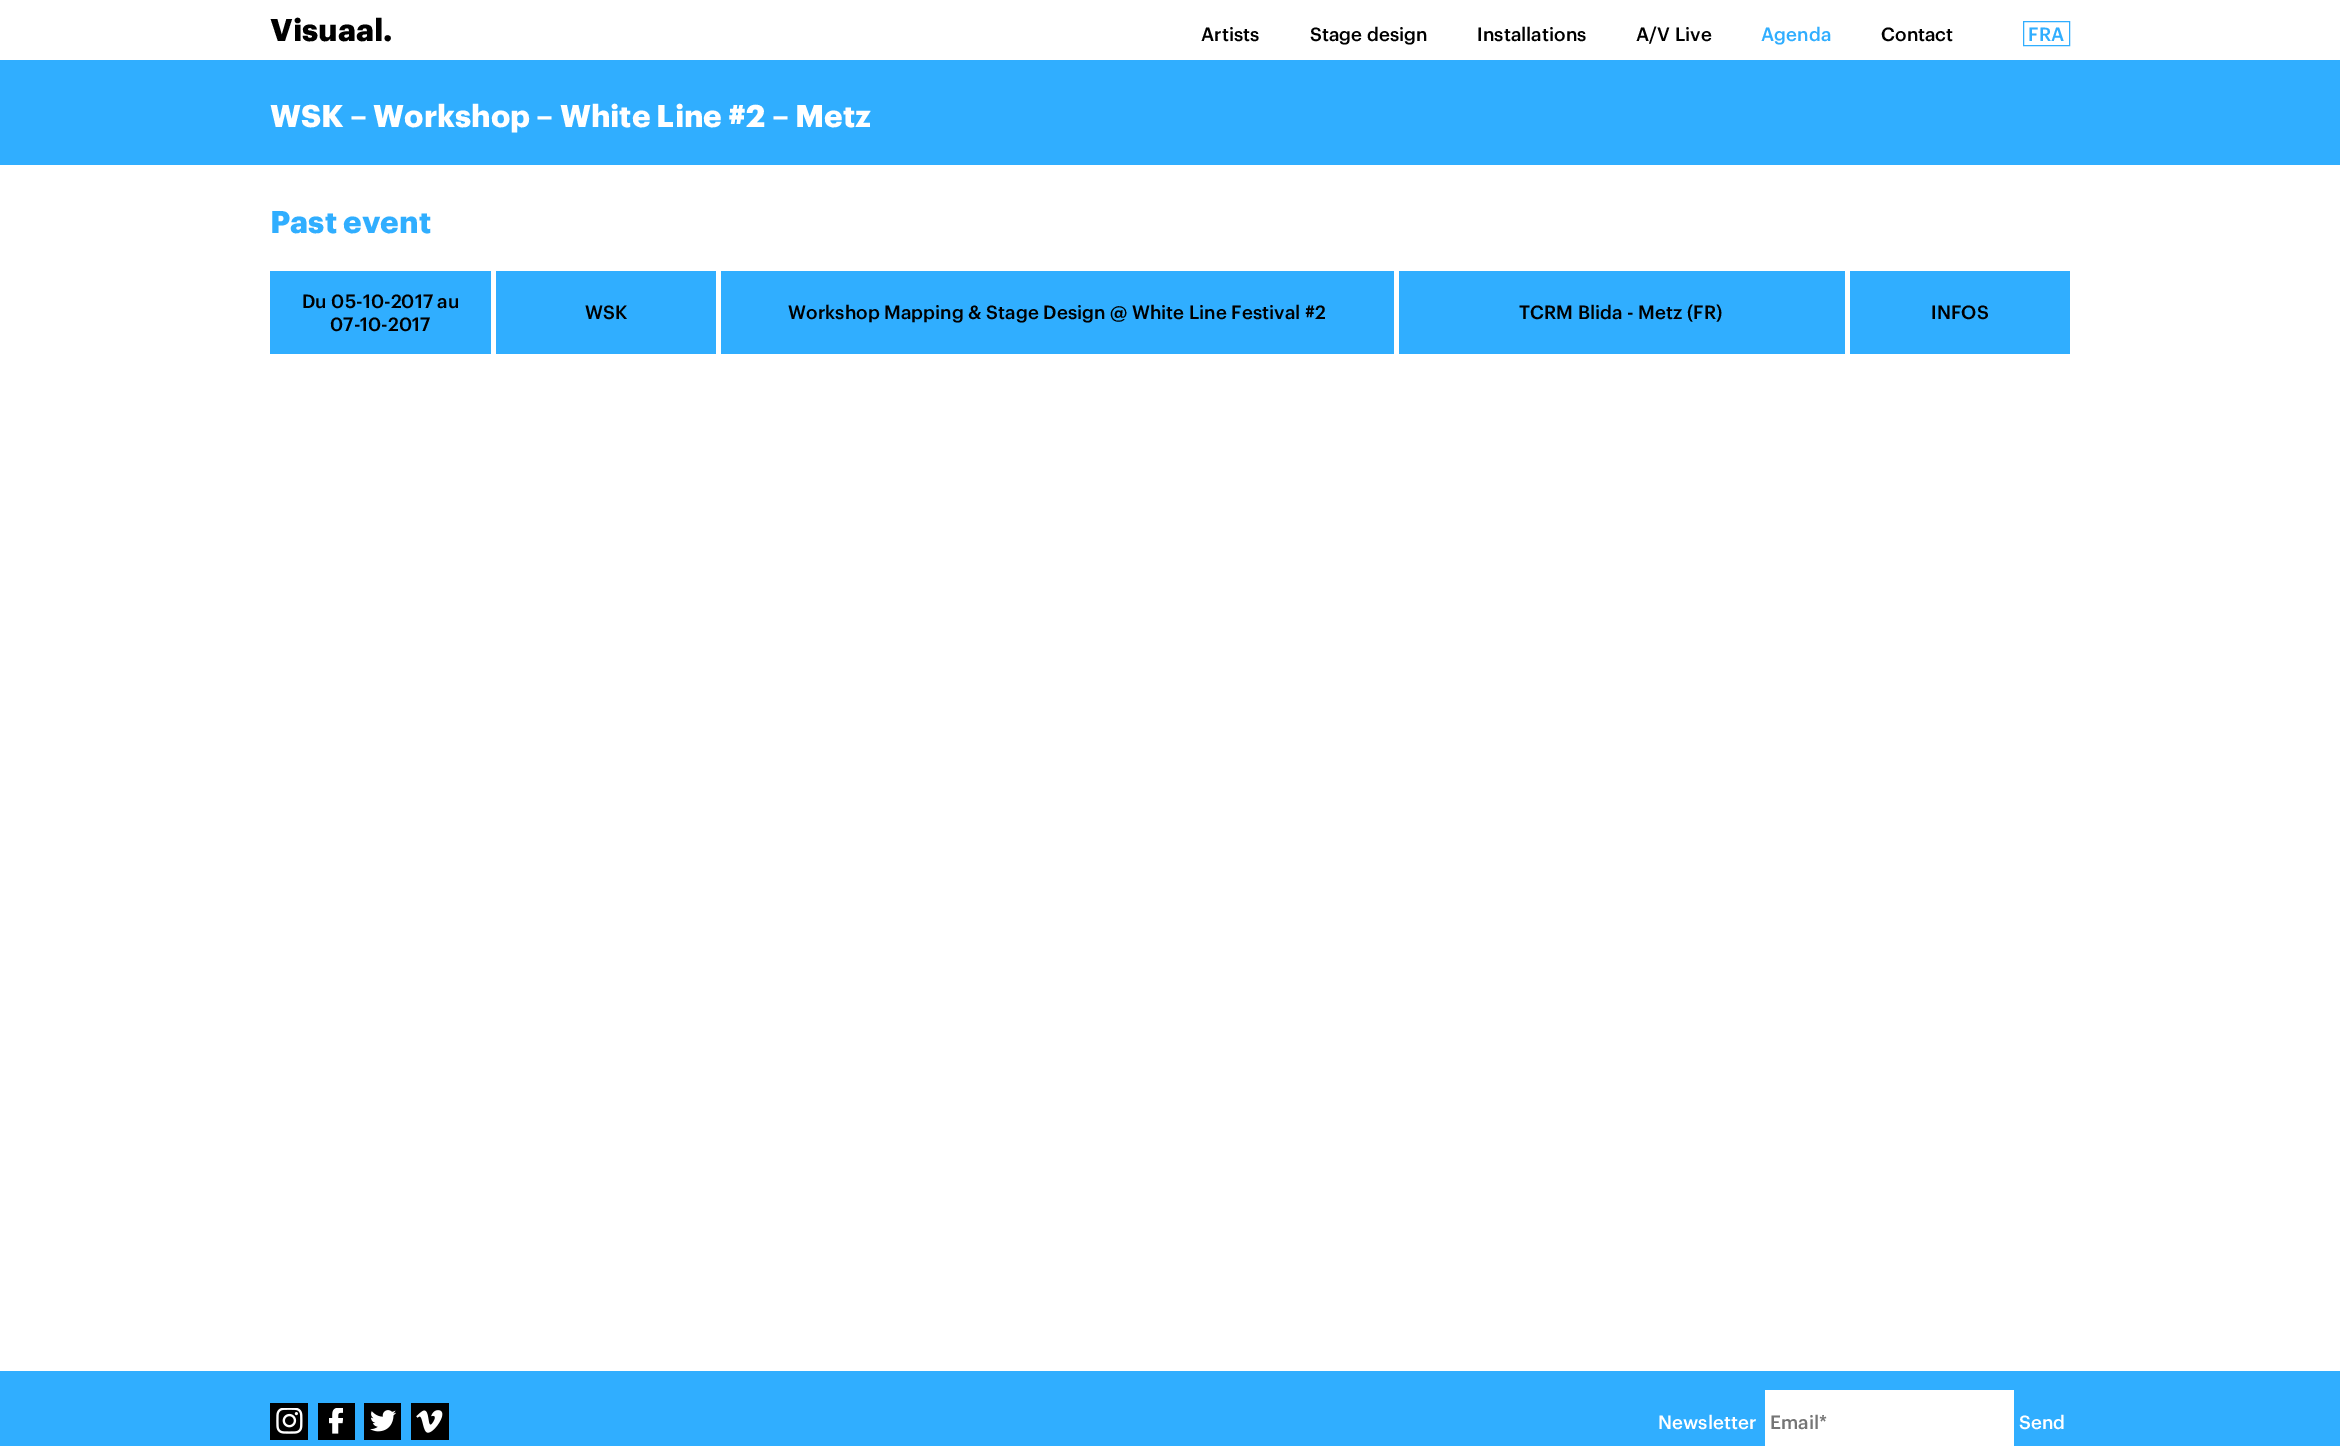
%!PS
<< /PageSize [2340 1446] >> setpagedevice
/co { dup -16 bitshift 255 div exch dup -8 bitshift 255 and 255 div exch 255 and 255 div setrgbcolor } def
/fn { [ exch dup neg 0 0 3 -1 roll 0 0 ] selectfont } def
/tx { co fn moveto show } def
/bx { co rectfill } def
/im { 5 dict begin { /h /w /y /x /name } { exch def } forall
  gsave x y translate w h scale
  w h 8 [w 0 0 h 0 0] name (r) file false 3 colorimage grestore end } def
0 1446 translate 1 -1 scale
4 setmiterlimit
0 0 2340 1446 16#FFFFFF bx
16#30AEFF co
2023.5 21.5 46 24 rectstroke
0 60 2340 105 16#30AEFF bx
270 271 221 83 16#30AEFF bx
496 271 220 83 16#30AEFF bx
721 271 673 83 16#30AEFF bx
1399 271 446 83 16#30AEFF bx
1850 271 220 83 16#30AEFF bx
0 1371 2340 75 16#30AEFF bx
270 1403 38 37 16#000000 bx
(media/1.raw) 276 1408 27 26 im
318 1403 37 37 16#000000 bx
(media/2.raw) 329 1408 14 26 im
364 1403 37 37 16#000000 bx
(media/3.raw) 370 1410 26 22 im
411 1403 38 37 16#000000 bx
(media/4.raw) 416 1410 27 23 im
1765 1390 249 56 16#FFFFFF bx
(Visuaal.) 270 41 /Graphik-Bold 30.9 16#000000 tx
(Artists) 1201 41 /Graphik-Medium 18.75 16#000000 tx
(Stage design) 1310 41 /Graphik-Medium 18.75 16#000000 tx
(Installations) 1477 41 /Graphik-Medium 18.75 16#000000 tx
(A/V Live) 1636 41 /Graphik-Medium 18.75 16#000000 tx
(Agenda) 1761 41 /Graphik-Medium 18.75 16#30AEFF tx
(Contact) 1881 41 /Graphik-Medium 18.75 16#000000 tx
(FRA) 2028 41 /Graphik-Medium 18.75 16#30AEFF tx
(WSK – Workshop – White Line #2 – Metz) 270 127 /Graphik-Bold 30.9 16#FFFFFF tx
(Past event) 270 233 /Graphik-Bold 30.9 16#30AEFF tx
(Du 05-10-2017 au) 302 308 /Graphik-Medium 18.75 16#000000 tx
(07-10-2017) 330 331 /Graphik-Medium 18.75 16#000000 tx
(WSK) 585 319 /Graphik-Medium 18.75 16#000000 tx
(Workshop Mapping & Stage Design @ White Line Festival #2) 788 319 /Graphik-Medium 18.75 16#000000 tx
(TCRM Blida - Metz \(FR\)) 1519 319 /Graphik-Medium 18.75 16#000000 tx
(INFOS) 1931 319 /Graphik-Medium 18.75 16#000000 tx
(Newsletter) 1658 1429 /Graphik-Medium 18.75 16#FFFFFF tx
(Email*) 1770 1429 /Graphik-Medium 18.75 16#757575 tx
(Send) 2019 1429 /Graphik-Medium 18.75 16#FFFFFF tx
showpage
